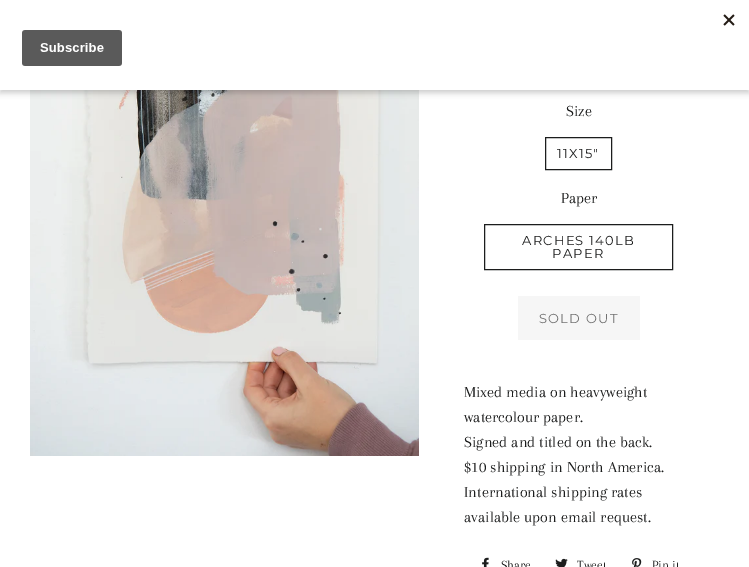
%!PS
<< /PageSize [749 567] /PageUsesTransparency true >> setpagedevice
/mt/moveto load def
/co { dup -16 bitshift 255 div exch dup -8 bitshift 255 and 255 div exch 255 and 255 div setrgbcolor } def
/fn { [ exch dup neg 0 0 3 -1 roll 0 0 ] selectfont } def
/tx { co fn moveto show } def
/bx { co rectfill } def
/al { dup .setfillconstantalpha .setstrokeconstantalpha } def
/rr { 5 dict begin { /r /h /w /y /x } { exch def } forall
  x r add y moveto x w add y 2 copy h add r arct x w add y h add x 1 index r arct
  x y h add x y r arct x y 2 copy exch w add exch r arct closepath end } def
/sh { 12 dict begin { /a /b /q /h /w /y /x } { exch def } forall gsave /was 0 def
  9 -2 -9 { dup b mul 4 div /e exch def 1 sub .425 mul 2.718 exch exp 1 add a .99 .min exch div /now exch def
    1 1 now sub 1 was sub div sub al /was now def
    w h .min e 2 mul add 0 gt { x e sub y e sub w e 2 mul add h e 2 mul add
      q e add b .6 mul add w h .min 2 div e add .min 0 .max rr fill } if } for grestore end } def
/im { 5 dict begin { /h /w /y /x /name } { exch def } forall
  gsave x y translate w h scale
  w h 8 [w 0 0 h 0 0] name (r) file false 3 colorimage grestore end } def
0 .pushpdf14devicefilter
0 567 translate 1 -1 scale
4 setmiterlimit
0 0 749 567 16#FFFFFF bx
(media/2.raw) 30 90 389 366 im
16#000000 co
0 3 749 90 0 3 .2 sh
0 0 749 90 16#FFFFFF bx
(media/1.raw) 22 14 713 52 im
16#1C1D1D co
545.5 137.5 66 32 rectstroke
484.5 224.5 188 45 rectstroke
518 296 122 44 16#F6F6F6 bx
(media/3.raw) 482 557 7 10 im
(media/4.raw) 555 558 13 9 im
(media/5.raw) 632 558 10 9 im
(Size) 566 116 /Arapey-Regular 16 16#1C1D1D tx
/Montserrat-Thin 13 fn
557 158 mt 1.25 0 (11X15") ashow
(Paper) 561 203 /Arapey-Regular 16 16#1C1D1D tx
/Montserrat-Thin 13 fn
522 245 mt 1.25 0 (ARCHES 140LB) ashow
552 258 mt 1.25 0 (PAPER) ashow
16#717171 co
539 323 mt 1.25 0 (SOLD OUT) ashow
(Mixed media on heavyweight) 464 397 /Arapey-Regular 16 16#1C1D1D tx
(watercolour paper.) 464 422 /Arapey-Regular 16 16#1C1D1D tx
(Signed and titled on the back.) 464 447 /Arapey-Regular 16 16#1C1D1D tx
($10 shipping in North America.) 464 472 /Arapey-Regular 16 16#1C1D1D tx
(International shipping rates) 464 497 /Arapey-Regular 16 16#1C1D1D tx
(available upon email request.) 464 522 /Arapey-Regular 16 16#1C1D1D tx
(Share) 501 569 /Arapey-Regular 13 16#1C1D1D tx
(Tweet) 577 569 /Arapey-Regular 13 16#1C1D1D tx
(Pin it) 652 569 /Arapey-Regular 13 16#1C1D1D tx
.poppdf14devicefilter showpage
